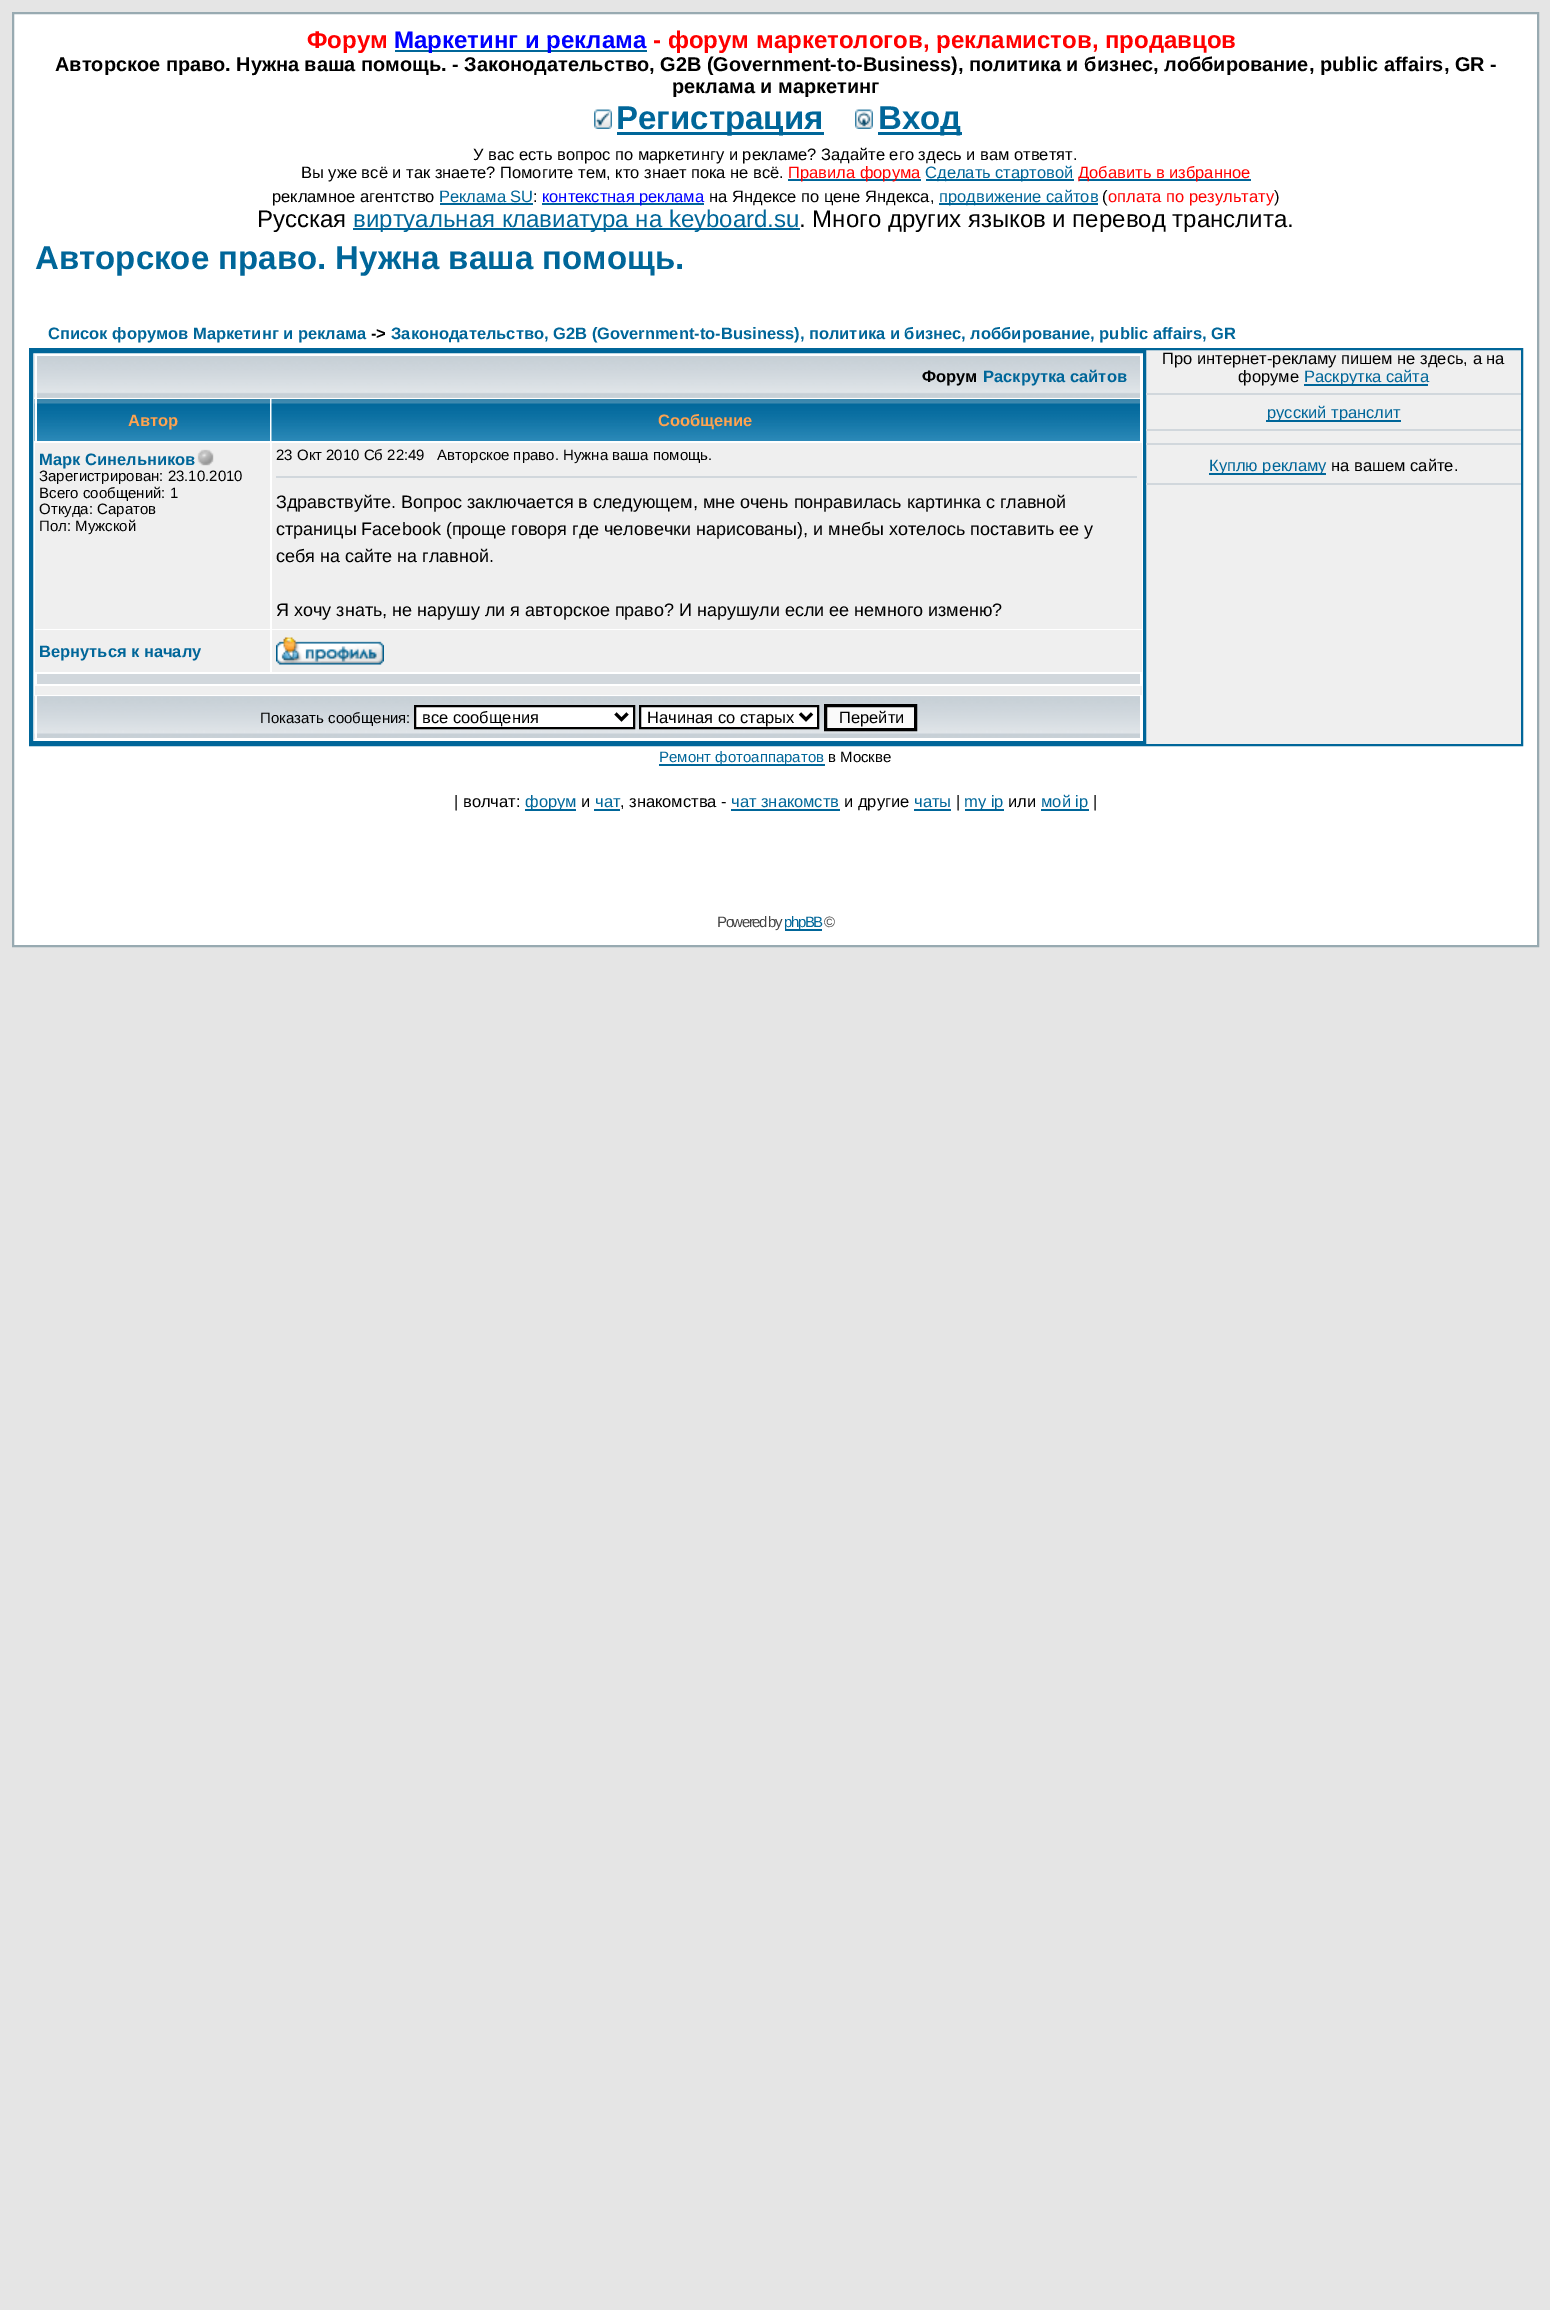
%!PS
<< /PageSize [1550 2310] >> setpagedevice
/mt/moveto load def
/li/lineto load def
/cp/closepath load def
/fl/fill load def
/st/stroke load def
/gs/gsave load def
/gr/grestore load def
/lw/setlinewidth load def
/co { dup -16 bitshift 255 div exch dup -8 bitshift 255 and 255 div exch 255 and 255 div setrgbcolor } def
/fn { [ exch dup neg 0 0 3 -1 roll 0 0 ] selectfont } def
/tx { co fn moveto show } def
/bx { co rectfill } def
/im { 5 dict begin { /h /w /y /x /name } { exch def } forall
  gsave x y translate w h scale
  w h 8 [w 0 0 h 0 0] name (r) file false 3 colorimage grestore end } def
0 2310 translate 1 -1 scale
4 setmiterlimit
0 0 1550 2310 16#E5E5E5 bx
16#FFFFFF co
13 13 mt 1538 13 li 1538 946 li 13 946 li cp gs fl gr
16#98AAB1 co
2 lw
st
395 50 252 2 16#006699 bx
(media/1.raw) 594 109 18 20 im
617 132 207 3 16#006699 bx
(media/2.raw) 855 109 18 20 im
878 132 84 3 16#006699 bx
788 179 133 2 16#006699 bx
926 179 148 2 16#006699 bx
1079 179 172 2 16#006699 bx
440 203 93 2 16#006699 bx
542 203 162 2 16#006699 bx
939 203 159 2 16#006699 bx
353 228 447 2 16#006699 bx
1146 350 375 394 16#EFEFEF bx
16#006699 co
30 349 1492 396 rectstroke
3 lw
31.5 351.5 1113 391 rectstroke
37 397 1103 1 16#D1D7DC bx
(media/3.raw) 34 354 1106 44 im
35 354 1107 2 16#FFFFFF bx
35 354 2 44 16#FFFFFF bx
(media/4.raw) 34 399 236 42 im
35 399 2 42 16#FFFFFF bx
(media/5.raw) 271 399 869 42 im
35 443 235 186 16#EFEFEF bx
(media/6.raw) 197 449 17 17 im
272 443 870 186 16#EFEFEF bx
276 476 861 2 16#D1D7DC bx
35 630 235 42 16#EFEFEF bx
272 630 870 42 16#EFEFEF bx
(media/7.raw) 276 637 108 28 im
37 674 1103 10 16#D1D7DC bx
35 686 1107 9 16#EFEFEF bx
(media/8.raw) 34 696 1106 44 im
35 738 1107 2 16#FFFFFF bx
35 696 2 44 16#FFFFFF bx
415 706 mt 634 706 li 634 728 li 415 728 li cp gs fl gr
16#000000 co
2 lw
st
3 lw
615.5 713.5 mt 621.5 719.5 li 627.5 713.5 li st
16#FFFFFF co
640 706 mt 818 706 li 818 728 li 640 728 li cp gs fl gr
16#000000 co
2 lw
st
3 lw
800 713.5 mt 806 719.5 li 812 713.5 li st
16#FAFAFA co
825.5 705.5 mt 915.5 705.5 li 915.5 729.5 li 825.5 729.5 li cp gs fl gr
16#000000 co
st
1304 384 124 2 16#006699 bx
1146 393 375 2 16#D1D7DC bx
1266 420 135 2 16#006699 bx
1146 429 375 2 16#D1D7DC bx
1146 443 375 2 16#D1D7DC bx
1209 473 117 2 16#006699 bx
1146 483 375 2 16#D1D7DC bx
659 764 166 2 16#006699 bx
525 809 51 2 16#006699 bx
594 809 26 2 16#006699 bx
731 809 109 2 16#006699 bx
914 809 37 2 16#006699 bx
965 809 39 2 16#006699 bx
1041 809 48 2 16#006699 bx
785 929 37 2 16#006699 bx
(Форум) 307 48 /LiberationSans-Bold 24 16#FF0000 tx
(Маркетинг и реклама) 394 48 /LiberationSans-Bold 24 16#0000FF tx
(- форум маркетологов, рекламистов, продавцов) 653 48 /LiberationSans-Bold 24 16#FF0000 tx
(Авторское право. Нужна ваша помощь. - Законодательство, G2B \(Government-to-Business\), политика и бизнес, лоббирование, public affairs, GR -) 55 71 /LiberationSans-Bold 19.92 16#000000 tx
(реклама и маркетинг) 672 93 /LiberationSans-Bold 19.92 16#000000 tx
(Регистрация) 616 129 /LiberationSans-Bold 33 16#006699 tx
(Вход) 878 129 /LiberationSans-Bold 33 16#006699 tx
(У вас есть вопрос по маркетингу и рекламе? Задайте его здесь и вам ответят.) 473 160 /LiberationSans-Regular 16.5 16#000000 tx
(Вы уже всё и так знаете? Помогите тем, кто знает пока не всё.) 301 178 /LiberationSans-Regular 16.5 16#000000 tx
(Правила форума) 788 178 /LiberationSans-Regular 16.5 16#FF0000 tx
(Сделать стартовой) 925 178 /LiberationSans-Regular 16.5 16#006699 tx
(Добавить в избранное) 1078 178 /LiberationSans-Regular 16.5 16#FF0000 tx
(рекламное агентство) 272 202 /LiberationSans-Regular 16.5 16#000000 tx
(Реклама SU) 439 202 /LiberationSans-Regular 16.5 16#006699 tx
(:) 533 202 /LiberationSans-Regular 16.5 16#000000 tx
(контекстная реклама) 542 202 /LiberationSans-Regular 16.5 16#0000FF tx
(на Яндексе по цене Яндекса,) 709 202 /LiberationSans-Regular 16.5 16#000000 tx
(продвижение сайтов) 939 202 /LiberationSans-Regular 16.5 16#006699 tx
(\() 1102 202 /LiberationSans-Regular 16.5 16#000000 tx
(оплата по результату) 1108 202 /LiberationSans-Regular 16.5 16#FF0000 tx
(\)) 1274 202 /LiberationSans-Regular 16.5 16#000000 tx
(Русская) 257 227 /LiberationSans-Regular 24 16#000000 tx
(виртуальная клавиатура на keyboard.su) 353 227 /LiberationSans-Regular 24 16#006699 tx
(. Много других языков и перевод транслита.) 799 227 /LiberationSans-Regular 24 16#000000 tx
(Авторское право. Нужна ваша помощь.) 35 269 /LiberationSans-Bold 33 16#006699 tx
(Список форумов Маркетинг и реклама) 48 339 /LiberationSans-Bold 16.5 16#006699 tx
(->) 371 339 /LiberationSans-Bold 16.5 16#000000 tx
(Законодательство, G2B \(Government-to-Business\), политика и бизнес, лоббирование, public affairs, GR) 391 339 /LiberationSans-Bold 16.5 16#006699 tx
(Форум) 922 382 /LiberationSans-Bold 16.5 16#000000 tx
(Раскрутка сайтов) 983 382 /LiberationSans-Bold 16.5 16#006699 tx
(Автор) 128 426 /LiberationSans-Bold 16.5 16#FFA34F tx
(Сообщение) 658 426 /LiberationSans-Bold 16.5 16#FFA34F tx
(Марк Синельников) 39 465 /LiberationSans-Bold 16.5 16#006699 tx
(Зарегистрирован: 23.10.2010) 39 481 /LiberationSans-Regular 15 16#000000 tx
(Всего сообщений: 1) 39 498 /LiberationSans-Regular 15 16#000000 tx
(Откуда: Саратов) 39 514 /LiberationSans-Regular 15 16#000000 tx
(Пол: Мужской) 39 531 /LiberationSans-Regular 15 16#000000 tx
(23 Окт 2010 Сб 22:49) 276 460 /LiberationSans-Regular 15 16#000000 tx
(Авторское право. Нужна ваша помощь.) 437 460 /LiberationSans-Regular 15 16#000000 tx
(Здравствуйте. Вопрос заключается в следующем, мне очень понравилась картинка с главной) 276 508 /LiberationSans-Regular 18 16#000000 tx
(страницы Facebook \(проще говоря где человечки нарисованы\), и мнебы хотелось поставить ее у) 276 535 /LiberationSans-Regular 18 16#000000 tx
(себя на сайте на главной.) 276 562 /LiberationSans-Regular 18 16#000000 tx
(Я хочу знать, не нарушу ли я авторское право? И нарушули если ее немного изменю?) 276 616 /LiberationSans-Regular 18 16#000000 tx
(Вернуться к началу) 39 657 /LiberationSans-Bold 16.5 16#006699 tx
(Показать сообщения:) 260 723 /LiberationSans-Regular 15 16#000000 tx
(все сообщения) 422 723 /LiberationSans-Regular 16.5 16#000000 tx
(Начиная со старых) 647 723 /LiberationSans-Regular 16.5 16#000000 tx
(Перейти) 839 723 /LiberationSans-Regular 16.5 16#000000 tx
(Про интернет-рекламу пишем не здесь, а на) 1162 364 /LiberationSans-Regular 16.5 16#000000 tx
(форуме) 1238 382 /LiberationSans-Regular 16.5 16#000000 tx
(Раскрутка сайта) 1304 382 /LiberationSans-Regular 16.5 16#006699 tx
(русский транслит) 1267 418 /LiberationSans-Regular 16.5 16#006699 tx
(Куплю рекламу) 1209 471 /LiberationSans-Regular 16.5 16#006699 tx
(на вашем сайте.) 1331 471 /LiberationSans-Regular 16.5 16#000000 tx
(Ремонт фотоаппаратов) 659 762 /LiberationSans-Regular 15 16#006699 tx
(в Москве) 828 762 /LiberationSans-Regular 15 16#000000 tx
(| волчат:) 454 807 /LiberationSans-Regular 16.5 16#000000 tx
(форум) 525 807 /LiberationSans-Regular 16.5 16#006699 tx
(и) 581 807 /LiberationSans-Regular 16.5 16#000000 tx
(чат) 595 807 /LiberationSans-Regular 16.5 16#006699 tx
(, знакомства -) 620 807 /LiberationSans-Regular 16.5 16#000000 tx
(чат знакомств) 731 807 /LiberationSans-Regular 16.5 16#006699 tx
(и другие) 844 807 /LiberationSans-Regular 16.5 16#000000 tx
(чаты) 914 807 /LiberationSans-Regular 16.5 16#006699 tx
(|) 956 807 /LiberationSans-Regular 16.5 16#000000 tx
(my ip) 964 807 /LiberationSans-Regular 16.5 16#006699 tx
(или) 1008 807 /LiberationSans-Regular 16.5 16#000000 tx
(мой ip) 1041 807 /LiberationSans-Regular 16.5 16#006699 tx
(|) 1093 807 /LiberationSans-Regular 16.5 16#000000 tx
/LiberationSans-Regular 15 fn
16#444444 co
717 927 mt -1.5 0 (Powered by) ashow
16#006699 co
784 927 mt -1.5 0 (phpBB) ashow
16#444444 co
824 927 mt -1.5 0 (©) ashow
showpage
